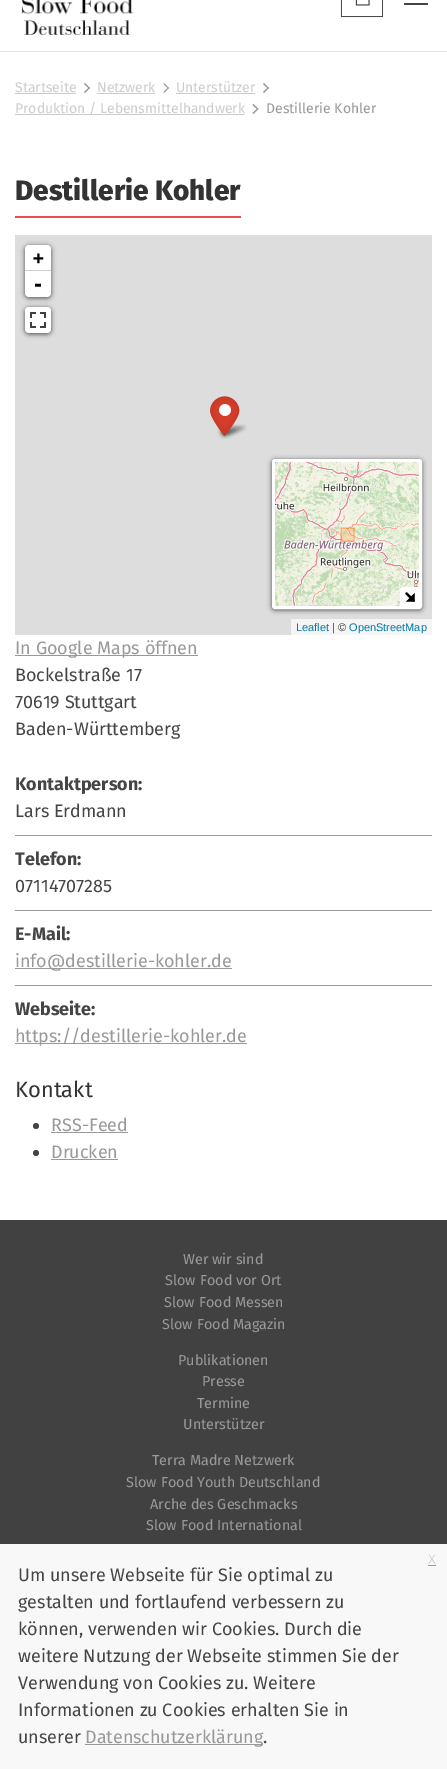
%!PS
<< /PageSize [447 1769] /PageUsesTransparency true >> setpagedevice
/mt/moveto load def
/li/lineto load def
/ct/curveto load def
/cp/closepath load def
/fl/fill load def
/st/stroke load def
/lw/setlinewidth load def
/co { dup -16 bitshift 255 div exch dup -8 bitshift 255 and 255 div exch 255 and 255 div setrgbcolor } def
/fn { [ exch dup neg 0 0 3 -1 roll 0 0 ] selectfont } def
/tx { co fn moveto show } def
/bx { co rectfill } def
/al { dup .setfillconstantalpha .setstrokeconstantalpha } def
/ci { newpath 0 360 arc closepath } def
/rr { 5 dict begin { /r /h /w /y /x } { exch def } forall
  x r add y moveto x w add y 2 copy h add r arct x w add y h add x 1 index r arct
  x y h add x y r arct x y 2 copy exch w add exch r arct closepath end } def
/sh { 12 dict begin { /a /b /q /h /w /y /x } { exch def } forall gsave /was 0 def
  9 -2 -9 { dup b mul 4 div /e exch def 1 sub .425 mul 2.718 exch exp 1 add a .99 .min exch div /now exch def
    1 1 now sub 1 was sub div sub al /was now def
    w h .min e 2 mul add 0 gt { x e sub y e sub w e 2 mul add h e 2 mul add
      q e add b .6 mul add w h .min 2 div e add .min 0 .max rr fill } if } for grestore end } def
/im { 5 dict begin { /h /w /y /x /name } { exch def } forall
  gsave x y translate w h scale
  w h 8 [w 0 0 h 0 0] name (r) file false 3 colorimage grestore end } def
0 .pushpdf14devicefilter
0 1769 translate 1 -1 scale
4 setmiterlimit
0 0 447 1769 16#FFFFFF bx
0 51 447 1 16#E7E7E7 bx
(media/1.raw) 21 0 113 35 im
(media/2.raw) 340 0 44 18 im
404 3 24 2 16#454545 bx
15 93 61 1 16#CCCCCC bx
16#999999 co
85 83 mt 90 88 li 89 88.5 li 84 84 li cp fl
84 92 mt 89 87.5 li 90 88 li 85 93 li cp fl
97 93 58 1 16#CCCCCC bx
16#999999 co
164 83 mt 169 88 li 168 88.5 li 163.5 84 li cp fl
163.5 92 mt 168 87.5 li 169 88 li 164 93 li cp fl
176 93 79 1 16#CCCCCC bx
16#999999 co
264 83 mt 269 88 li 268 88.5 li 263 84 li cp fl
263 92 mt 268 87.5 li 269 88 li 264 93 li cp fl
15 114 230 1 16#CCCCCC bx
16#999999 co
253.5 104 mt 258.5 109 li 257.5 109.5 li 252.5 105 li cp fl
252.5 113 mt 257.5 108.5 li 258.5 109 li 253.5 114 li cp fl
0 1544 447 225 16#F8F8F9 bx
428 1565 8 1 16#999999 bx
85 1744 178 1 16#999999 bx
15 216 226 2 16#E84C55 bx
15 235 417 400 16#DDDDDD bx
16#000000 co
25 246 26 52 4 2.5 .65 sh
16#FFFFFF co
29 245 mt 47 245 li 49 245 51 247 51 249 ct 51 271 li 25 271 li 25 249 li 25 247 27 245 29 245 ct cp fl
25 270 26 1 16#CCCCCC bx
16#FFFFFF co
25 271 mt 51 271 li 51 293 li 51 295 49 297 47 297 ct 29 297 li 27 297 25 295 25 293 ct cp fl
16#000000 co
25 308 26 26 4 2.5 .65 sh
16#FFFFFF co
25 307 26 26 4 rr fl
(media/3.raw) 30 312 16 16 im
16#000000 co
272 460 150 150 3 2.5 .65 sh
16#FFFFFF co
3 lw
273.5 460.5 147 147 1.5 rr st
(media/4.raw) 275 462 144 48 im
(media/5.raw) 275 510 144 96 im
0.2 al
341 528 13 13 16#FF7800 bx
0.5 al
1 lw
1 setlinecap
1 setlinejoin
341 541 mt 341 528 li 354 528 li 354 541 li cp st
1 al
16#FFFFFF co
403 587 mt 419 587 li 419 606 li 400 606 li 400 590 li 400 588.5 401.5 587 403 587 ct cp fl
(media/6.raw) 405 592 10 10 im
291 619 141 16 16#F5F5F5 bx
(media/9.raw) 217 424 30 15 im
(media/7.raw) 210 396 30 41 im
(media/8.raw) 219 404 12 12 im
15 655 183 1 16#999999 bx
15 835 417 1 16#999999 bx
15 910 417 1 16#999999 bx
15 985 417 1 16#999999 bx
15 968 217 1 16#999999 bx
15 1043 232 1 16#999999 bx
16#454545 co
36 1126 3 ci fl
51 1132 77 1 16#999999 bx
16#454545 co
36 1153 3 ci fl
51 1159 67 1 16#999999 bx
0 1220 447 324 16#414141 bx
(Startseite) 15 92 /FiraSans-Regular 14 16#CCCCCC tx
(Netzwerk) 97 92 /FiraSans-Regular 14 16#CCCCCC tx
(Unterstützer) 176 92 /FiraSans-Regular 14 16#CCCCCC tx
(Produktion / Lebensmittelhandwerk) 15 113 /FiraSans-Regular 14 16#CCCCCC tx
(Destillerie Kohler) 266 113 /FiraSans-Regular 14 16#999999 tx
(x) 428 1564 /FiraSans-Thin 18 16#999999 tx
(Um unsere Webseite für Sie optimal zu) 18 1581 /FiraSans-Regular 18 16#454545 tx
(gestalten und fortlaufend verbessern zu) 18 1608 /FiraSans-Regular 18 16#454545 tx
(können, verwenden wir Cookies. Durch die) 18 1635 /FiraSans-Regular 18 16#454545 tx
(weitere Nutzung der Webseite stimmen Sie der) 18 1662 /FiraSans-Regular 18 16#454545 tx
(Verwendung von Cookies zu. Weitere) 18 1689 /FiraSans-Regular 18 16#454545 tx
(Informationen zu Cookies erhalten Sie in) 18 1716 /FiraSans-Regular 18 16#454545 tx
(unserer) 18 1743 /FiraSans-Regular 18 16#454545 tx
(Datenschutzerklärung) 85 1743 /FiraSans-Regular 18 16#999999 tx
(.) 263 1743 /FiraSans-Regular 18 16#454545 tx
(Destillerie Kohler) 15 200 /FiraSans-ExtraBold 28 16#333333 tx
(+) 33 264 /DejaVuSansMono-Bold 18 16#000000 tx
(-) 32 291 /DejaVuSansMono-Bold 20 16#000000 tx
(Leaflet) 296 631 /LiberationSans-Regular 11 16#0078A8 tx
(| ©) 332 631 /LiberationSans-Regular 11 16#333333 tx
(OpenStreetMap) 349 631 /LiberationSans-Regular 11 16#0078A8 tx
(In Google Maps öffnen) 15 654 /FiraSans-Regular 18 16#999999 tx
(Bockelstraße 17) 15 681 /FiraSans-Regular 18 16#454545 tx
(70619 Stuttgart) 15 708 /FiraSans-Regular 18 16#454545 tx
(Baden-Württemberg) 15 735 /FiraSans-Regular 18 16#454545 tx
(Kontaktperson:) 15 790 /FiraSans-Bold 18 16#454545 tx
(Lars Erdmann) 15 817 /FiraSans-Regular 18 16#454545 tx
(Telefon:) 15 865 /FiraSans-Bold 18 16#454545 tx
(07114707285) 15 892 /FiraSans-Regular 18 16#454545 tx
(E-Mail:) 15 940 /FiraSans-Bold 18 16#454545 tx
(info@destillerie-kohler.de) 15 967 /FiraSans-Regular 18 16#999999 tx
(Webseite:) 15 1015 /FiraSans-Bold 18 16#454545 tx
(https://destillerie-kohler.de) 15 1042 /FiraSans-Regular 18 16#999999 tx
(Kontakt) 15 1097 /FiraSans-Regular 22 16#333333 tx
(RSS-Feed) 51 1131 /FiraSans-Regular 18 16#999999 tx
(Drucken) 51 1158 /FiraSans-Regular 18 16#999999 tx
(Wer wir sind) 183 1264 /FiraSans-Regular 14.4 16#999999 tx
(Slow Food vor Ort) 165 1285 /FiraSans-Regular 14.4 16#999999 tx
(Slow Food Messen) 164 1307 /FiraSans-Regular 14.4 16#999999 tx
(Slow Food Magazin) 162 1329 /FiraSans-Regular 14.4 16#999999 tx
(Publikationen) 178 1365 /FiraSans-Regular 14.4 16#999999 tx
(Presse) 202 1386 /FiraSans-Regular 14.4 16#999999 tx
(Termine) 197 1408 /FiraSans-Regular 14.4 16#999999 tx
(Unterstützer) 183 1429 /FiraSans-Regular 14.4 16#999999 tx
(Terra Madre Netzwerk) 152 1465 /FiraSans-Regular 14.4 16#999999 tx
(Slow Food Youth Deutschland) 126 1487 /FiraSans-Regular 14.4 16#999999 tx
(Arche des Geschmacks) 150 1509 /FiraSans-Regular 14.4 16#999999 tx
(Slow Food International) 146 1530 /FiraSans-Regular 14.4 16#999999 tx
.poppdf14devicefilter showpage
